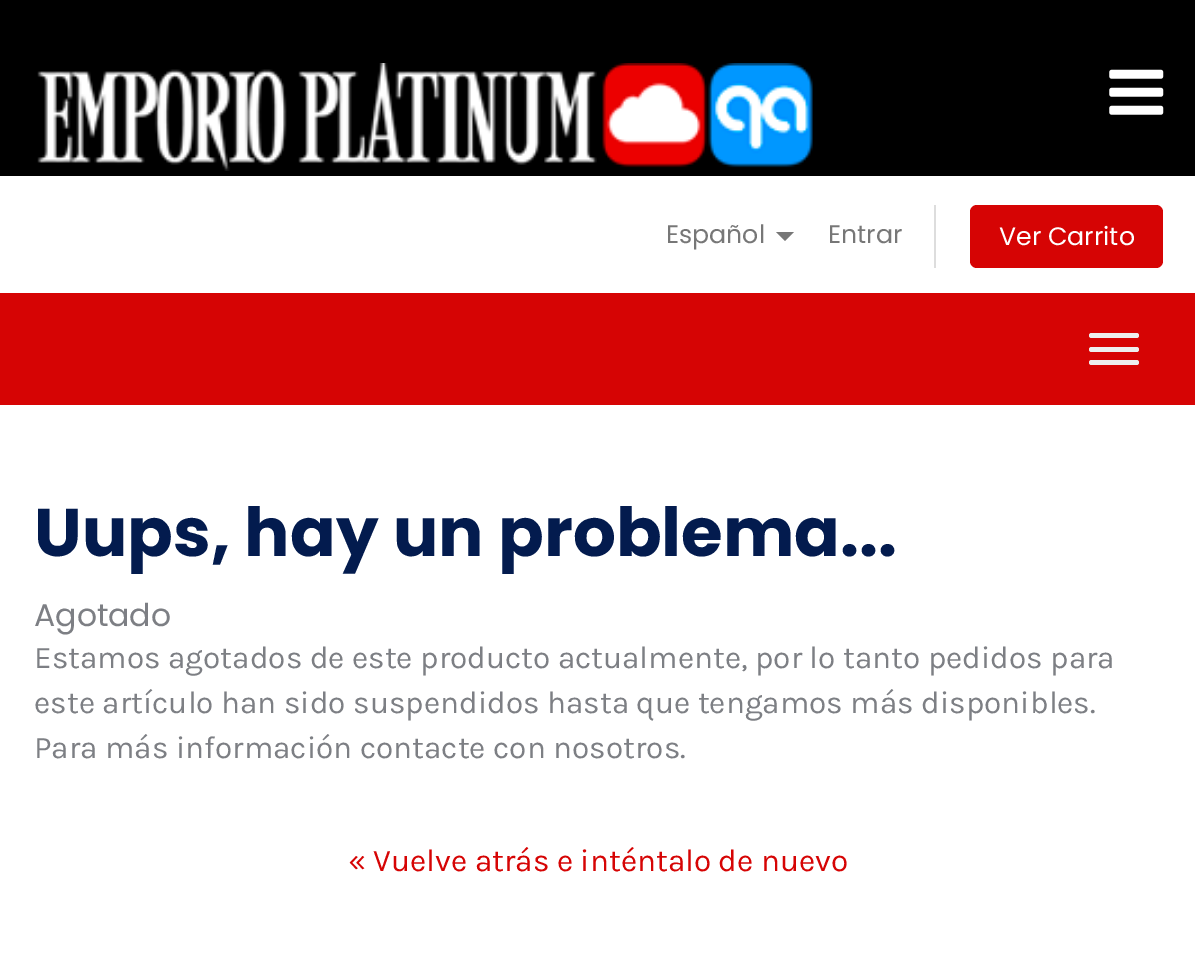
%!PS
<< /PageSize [1195 965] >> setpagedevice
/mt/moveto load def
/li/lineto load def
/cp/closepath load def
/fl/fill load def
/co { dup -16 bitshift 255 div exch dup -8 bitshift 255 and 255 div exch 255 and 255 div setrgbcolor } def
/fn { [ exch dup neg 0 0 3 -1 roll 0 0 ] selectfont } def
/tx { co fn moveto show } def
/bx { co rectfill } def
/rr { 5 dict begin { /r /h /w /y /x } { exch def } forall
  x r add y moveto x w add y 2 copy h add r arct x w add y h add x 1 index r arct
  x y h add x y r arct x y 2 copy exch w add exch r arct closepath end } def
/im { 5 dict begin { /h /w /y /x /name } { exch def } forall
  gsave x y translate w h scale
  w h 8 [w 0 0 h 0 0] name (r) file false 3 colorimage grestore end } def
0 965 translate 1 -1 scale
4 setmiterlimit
0 0 1195 965 16#FFFFFF bx
0 0 1195 176 16#000000 bx
(media/1.raw) 37 63 776 108 im
(media/2.raw) 1109 69 55 46 im
16#777777 co
776 232 mt 794 232 li 785 241 li cp fl
934 205 2 63 16#DDDDDD bx
16#D60404 co
970 205 193 63 7 rr fl
0 293 1195 112 16#D60404 bx
16#EEEEEE co
1089 333 50 5 2.5 rr fl
1089 347 50 5 2.5 rr fl
1089 360 50 5 2.5 rr fl
(Español) 666 243 /Poppins-Regular 25.25 16#777777 tx
(Entrar) 828 243 /Poppins-Regular 25.25 16#777777 tx
(Ver Carrito) 999 245 /Poppins-Regular 25.25 16#FFFFFF tx
(Uups, hay un problema...) 34 556 /Poppins-Bold 67.5 16#031B4E tx
(Agotado) 34 626 /Poppins-Regular 31.5 16#7D7F84 tx
(Estamos agotados de este producto actualmente, por lo tanto pedidos para) 34 668 /Karla-Regular 31.5 16#7D7F84 tx
(este artículo han sido suspendidos hasta que tengamos más disponibles.) 34 713 /Karla-Regular 31.5 16#7D7F84 tx
(Para más información contacte con nosotros.) 34 758 /Karla-Regular 31.5 16#7D7F84 tx
(« Vuelve atrás e inténtalo de nuevo) 348 871 /Karla-Regular 31.5 16#D60404 tx
showpage
